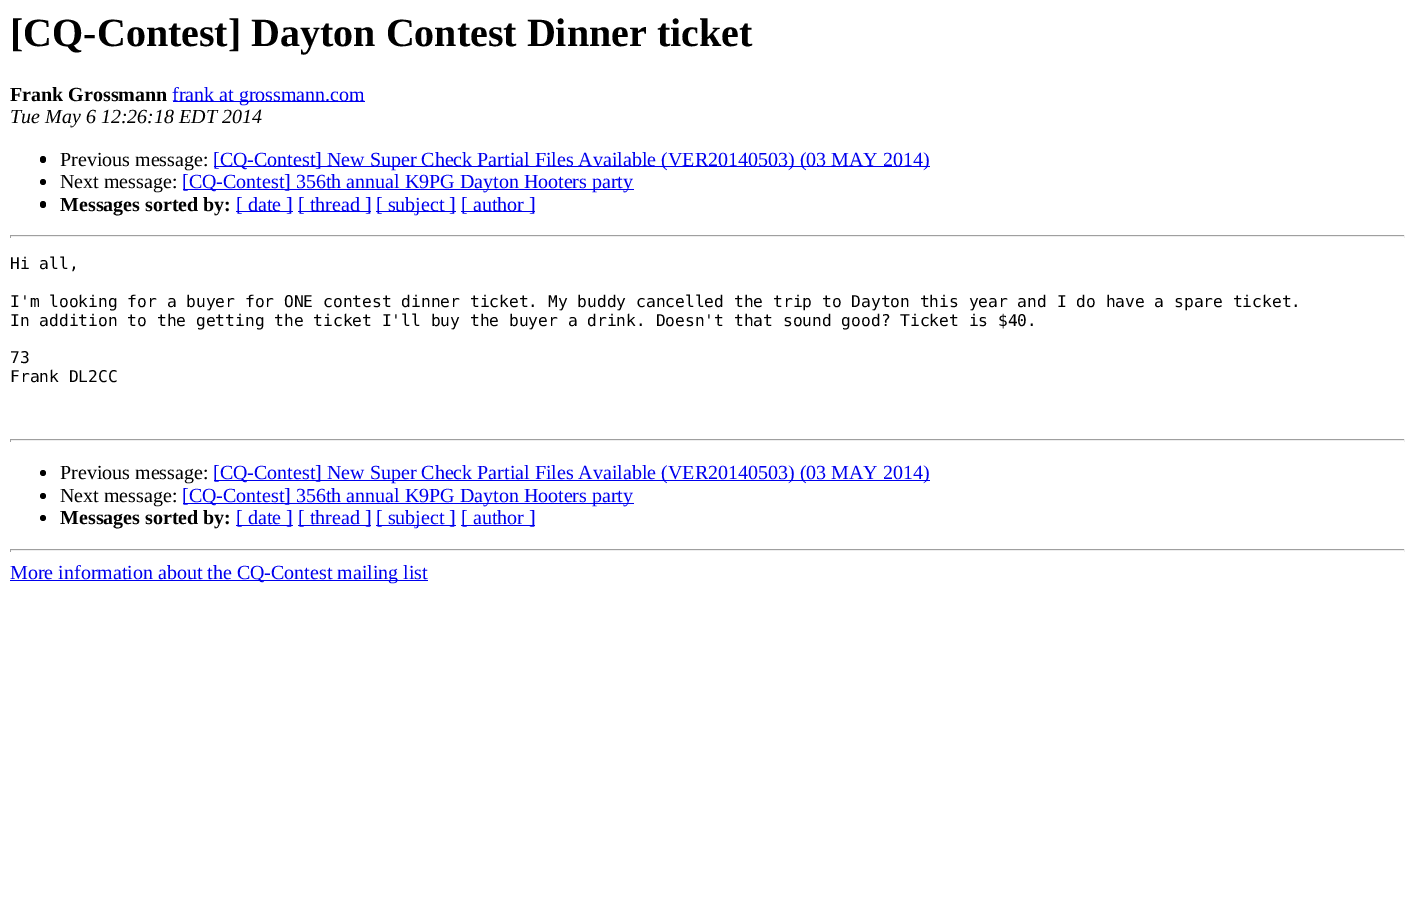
%!PS
<< /PageSize [1415 915] >> setpagedevice
/fl/fill load def
/co { dup -16 bitshift 255 div exch dup -8 bitshift 255 and 255 div exch 255 and 255 div setrgbcolor } def
/fn { [ exch dup neg 0 0 3 -1 roll 0 0 ] selectfont } def
/tx { co fn moveto show } def
/bx { co rectfill } def
/ci { newpath 0 360 arc closepath } def
/rr { 5 dict begin { /r /h /w /y /x } { exch def } forall
  x r add y moveto x w add y 2 copy h add r arct x w add y h add x 1 index r arct
  x y h add x y r arct x y 2 copy exch w add exch r arct closepath end } def
0 915 translate 1 -1 scale
4 setmiterlimit
0 0 1415 915 16#FFFFFF bx
173 101 192 1 16#0000EE bx
16#000000 co
40 156 6 7 3 rr fl
214 166 716 1 16#0000EE bx
16#000000 co
43 182 3 ci fl
183 189 451 1 16#0000EE bx
16#000000 co
40 201 6 7 3 rr fl
236 211 57 1 16#0000EE bx
298 211 73 1 16#0000EE bx
376 211 80 1 16#0000EE bx
461 211 74 1 16#0000EE bx
10 235 1395 1 16#9F9F9F bx
1404 235 1 3 16#EEEEEE bx
10 236 1395 1 16#EEEEEE bx
10 235 1 3 16#9F9F9F bx
10 439 1395 1 16#9F9F9F bx
1404 439 1 3 16#EEEEEE bx
10 440 1395 1 16#EEEEEE bx
10 439 1 3 16#9F9F9F bx
16#000000 co
43 473 3 ci fl
214 480 716 1 16#0000EE bx
16#000000 co
43 496 3 ci fl
183 503 451 1 16#0000EE bx
16#000000 co
43 518 3 ci fl
236 525 57 1 16#0000EE bx
298 525 73 1 16#0000EE bx
376 525 80 1 16#0000EE bx
461 525 74 1 16#0000EE bx
10 549 1395 1 16#9F9F9F bx
1404 549 1 3 16#EEEEEE bx
10 550 1395 1 16#EEEEEE bx
10 549 1 3 16#9F9F9F bx
10 580 418 1 16#0000EE bx
([CQ-Contest] Dayton Contest Dinner ticket) 10 46 /LiberationSerif-Bold 40 16#000000 tx
(Frank Grossmann) 10 101 /LiberationSerif-Bold 20 16#000000 tx
(frank at grossmann.com) 172 101 /LiberationSerif-Regular 20 16#0000EE tx
(Tue May 6 12:26:18 EDT 2014) 10 123 /LiberationSerif-Italic 20 16#000000 tx
(Previous message:) 60 166 /LiberationSerif-Regular 20 16#000000 tx
([CQ-Contest] New Super Check Partial Files Available \(VER20140503\) \(03 MAY 2014\)) 213 166 /LiberationSerif-Regular 20 16#0000EE tx
(Next message:) 60 188 /LiberationSerif-Regular 20 16#000000 tx
([CQ-Contest] 356th annual K9PG Dayton Hooters party) 182 188 /LiberationSerif-Regular 20 16#0000EE tx
(Messages sorted by:) 60 211 /LiberationSerif-Bold 20 16#000000 tx
([ date ]) 236 211 /LiberationSerif-Regular 20 16#0000EE tx
([ thread ]) 298 211 /LiberationSerif-Regular 20 16#0000EE tx
([ subject ]) 376 211 /LiberationSerif-Regular 20 16#0000EE tx
([ author ]) 461 211 /LiberationSerif-Regular 20 16#0000EE tx
(Hi all,) 10 269 /DejaVuSansMono-Regular 16.25 16#000000 tx
(I'm looking for a buyer for ONE contest dinner ticket. My buddy cancelled the trip to Dayton this year and I do have a spare ticket.) 10 307 /DejaVuSansMono-Regular 16.25 16#000000 tx
(In addition to the getting the ticket I'll buy the buyer a drink. Doesn't that sound good? Ticket is $40.) 10 326 /DejaVuSansMono-Regular 16.25 16#000000 tx
(73) 10 363 /DejaVuSansMono-Regular 16.25 16#000000 tx
(Frank DL2CC) 10 382 /DejaVuSansMono-Regular 16.25 16#000000 tx
(Previous message:) 60 479 /LiberationSerif-Regular 20 16#000000 tx
([CQ-Contest] New Super Check Partial Files Available \(VER20140503\) \(03 MAY 2014\)) 213 479 /LiberationSerif-Regular 20 16#0000EE tx
(Next message:) 60 502 /LiberationSerif-Regular 20 16#000000 tx
([CQ-Contest] 356th annual K9PG Dayton Hooters party) 182 502 /LiberationSerif-Regular 20 16#0000EE tx
(Messages sorted by:) 60 524 /LiberationSerif-Bold 20 16#000000 tx
([ date ]) 236 524 /LiberationSerif-Regular 20 16#0000EE tx
([ thread ]) 298 524 /LiberationSerif-Regular 20 16#0000EE tx
([ subject ]) 376 524 /LiberationSerif-Regular 20 16#0000EE tx
([ author ]) 461 524 /LiberationSerif-Regular 20 16#0000EE tx
(More information about the CQ-Contest mailing list) 10 579 /LiberationSerif-Regular 20 16#0000EE tx
showpage
